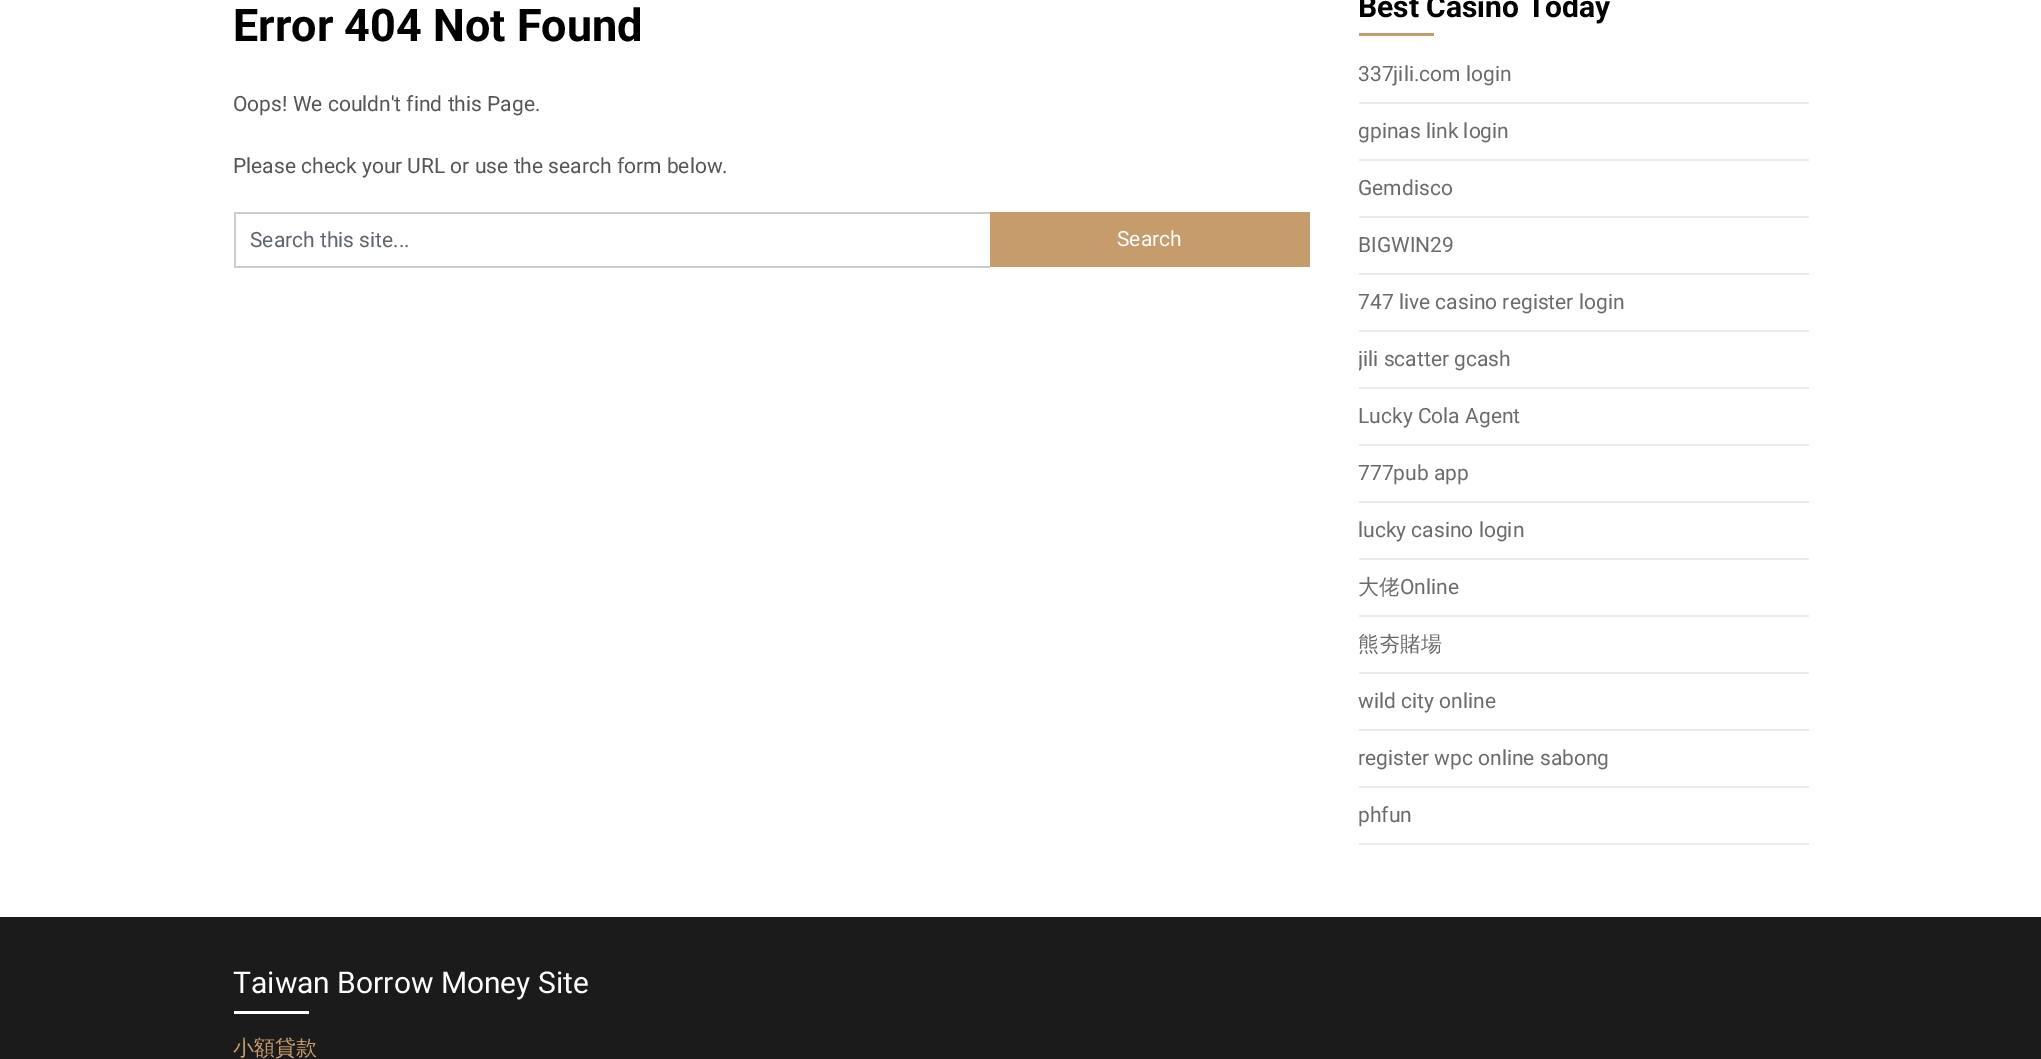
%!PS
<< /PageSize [2041 1059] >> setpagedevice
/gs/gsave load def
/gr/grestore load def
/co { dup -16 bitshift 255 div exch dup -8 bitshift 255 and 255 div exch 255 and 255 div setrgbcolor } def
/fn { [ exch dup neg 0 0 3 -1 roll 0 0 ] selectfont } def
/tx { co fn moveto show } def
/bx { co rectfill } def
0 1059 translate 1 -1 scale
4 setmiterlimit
0 0 2041 1059 16#FFFFFF bx
234 212 756 2 16#CCCCCC bx
234 266 756 2 16#CCCCCC bx
234 212 2 55 16#CCCCCC bx
990 212 320 55 16#C69C6D bx
1359 33 75 3 16#C69C6D bx
1359 102 450 2 16#EBEBEB bx
1359 159 450 2 16#EBEBEB bx
1359 216 450 2 16#EBEBEB bx
1359 273 450 2 16#EBEBEB bx
1359 330 450 2 16#EBEBEB bx
1359 387 450 2 16#EBEBEB bx
1359 444 450 2 16#EBEBEB bx
1359 501 450 2 16#EBEBEB bx
1359 558 450 2 16#EBEBEB bx
1359 615 450 2 16#EBEBEB bx
1359 672 450 2 16#EBEBEB bx
1359 729 450 2 16#EBEBEB bx
1359 786 450 2 16#EBEBEB bx
1359 843 450 2 16#EBEBEB bx
0 917 2041 142 16#1B1B1B bx
234 1011 75 3 16#FFFFFF bx
(Error 404 Not Found) 233 41 /Roboto-Bold 45 16#000000 tx
(Oops! We couldn't find this Page.) 233 111 /Roboto-Regular 21 16#555555 tx
(Please check your URL or use the search form below.) 233 173 /Roboto-Regular 21 16#555555 tx
(Search this site...) 250 247 /Roboto-Regular 21 16#5E656D tx
(Search) 1117 246 /Roboto-Regular 21 16#FFFFFF tx
(Best Casino Today) 1358 17 /Roboto-Bold 30 16#000000 tx
(337jili.com login) 1358 81 /Roboto-Regular 21 16#6B6B6B tx
(gpinas link login) 1358 138 /Roboto-Regular 21 16#6B6B6B tx
(Gemdisco) 1358 195 /Roboto-Regular 21 16#6B6B6B tx
(BIGWIN29) 1358 252 /Roboto-Regular 21 16#6B6B6B tx
(747 live casino register login) 1358 309 /Roboto-Regular 21 16#6B6B6B tx
gs
1359 0 450 857 rectclip
(jili scatter gcash) 1358 366 /Roboto-Regular 21 16#6B6B6B tx
gr
(Lucky Cola Agent) 1358 423 /Roboto-Regular 21 16#6B6B6B tx
(777pub app) 1358 480 /Roboto-Regular 21 16#6B6B6B tx
(lucky casino login) 1358 537 /Roboto-Regular 21 16#6B6B6B tx
(大佬) 1358 594 /WenQuanYiZenHei-Medium 21 16#6B6B6B tx
(Online) 1400 594 /Roboto-Regular 21 16#6B6B6B tx
(熊夯賭場) 1358 651 /WenQuanYiZenHei-Medium 21 16#6B6B6B tx
(wild city online) 1358 708 /Roboto-Regular 21 16#6B6B6B tx
(register wpc online sabong) 1358 765 /Roboto-Regular 21 16#6B6B6B tx
(phfun) 1358 822 /Roboto-Regular 21 16#6B6B6B tx
(Taiwan Borrow Money Site) 233 993 /Roboto-Regular 30 16#FFFFFF tx
(小額貸款) 233 1055 /WenQuanYiZenHei-Medium 21 16#C69C6D tx
showpage
